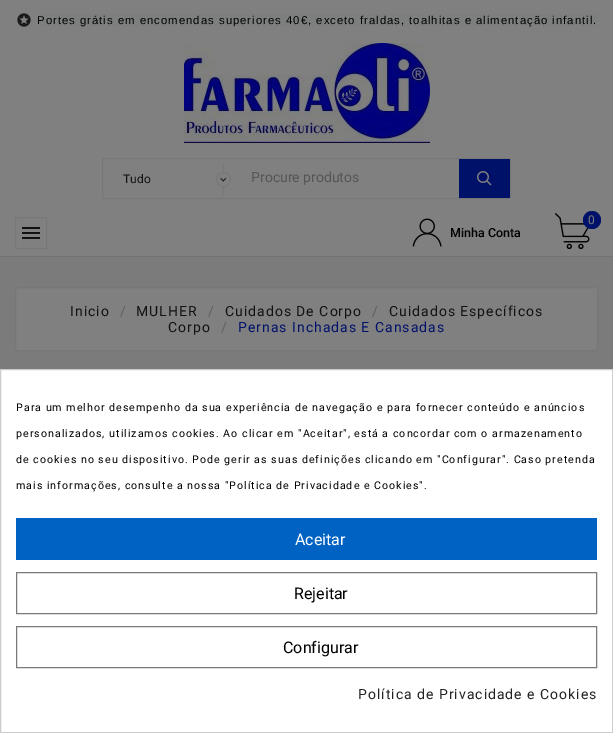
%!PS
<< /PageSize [613 733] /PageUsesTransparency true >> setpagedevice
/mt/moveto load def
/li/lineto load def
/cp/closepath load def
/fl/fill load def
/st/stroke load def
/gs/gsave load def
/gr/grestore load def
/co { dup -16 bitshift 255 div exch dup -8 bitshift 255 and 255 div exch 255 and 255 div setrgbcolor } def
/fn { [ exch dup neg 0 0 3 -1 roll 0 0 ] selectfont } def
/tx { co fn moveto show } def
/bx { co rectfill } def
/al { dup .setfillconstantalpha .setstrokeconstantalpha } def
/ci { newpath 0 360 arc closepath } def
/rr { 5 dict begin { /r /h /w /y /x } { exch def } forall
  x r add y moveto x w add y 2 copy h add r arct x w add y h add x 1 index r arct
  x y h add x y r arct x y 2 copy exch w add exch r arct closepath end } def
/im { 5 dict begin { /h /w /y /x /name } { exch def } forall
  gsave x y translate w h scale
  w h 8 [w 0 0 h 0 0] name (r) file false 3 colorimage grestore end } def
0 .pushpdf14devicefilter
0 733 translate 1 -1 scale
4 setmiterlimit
0 0 613 733 16#7B7B7B bx
0 0 613 256 16#808080 bx
0 256 613 1 16#737373 bx
(media/1.raw) 17 13 14 14 im
37 14 560 12 16#7D7E7E bx
(media/2.raw) 184 43 246 100 im
16#777777 co
102.5 158.5 408 40 2.5 rr st
(media/3.raw) 216 164 15 30 im
459 159 51 39 16#001169 bx
(media/4.raw) 477 171 15 15 im
16#777777 co
15.5 217.5 31 31 rectstroke
(media/5.raw) 22 227 18 12 im
(media/6.raw) 555 213 35 36 im
16#001169 co
592 220 9 ci fl
(media/7.raw) 412 218 30 29 im
16#808080 co
15 287 583 64 3 rr fl
0.07 al
16#000000 co
15.5 287.5 582 63 2.5 rr st
1 al
16#FFFFFF co
.5 369.5 mt 612.5 369.5 li 612.5 732.5 li .5 732.5 li cp gs fl gr
16#CCCCCC co
st
16 518 581 42 16#0062C2 bx
16#7A7A7A co
16.5 572.5 580 41 rectstroke
16.5 626.5 580 41 rectstroke
/LiberationSans-Regular 11.35 fn
16#000000 co
37 24 mt 1 0 (Portes grátis em encomendas superiores 40€, exceto fraldas, toalhitas e alimentação infantil.) ashow
(Tudo) 123 183 /Roboto-Regular 12 16#121212 tx
(Procure produtos) 251 182 /Roboto-Regular 14 16#555555 tx
/Roboto-Regular 12 fn
16#808080 co
588 224 mt 1 0 (0) ashow
(Minha Conta) 450 237 /Roboto-Medium 12.5 16#000000 tx
/Roboto-Regular 14 fn
16#121212 co
70 316 mt 1 0 (Inicio) ashow
16#5F5F5F co
120 316 mt 1 0 (/) ashow
16#121212 co
136 316 mt 1 0 (MULHER) ashow
16#5F5F5F co
208 316 mt 1 0 (/) ashow
16#121212 co
225 316 mt 1 0 (Cuidados De Corpo) ashow
16#5F5F5F co
372 316 mt 1 0 (/) ashow
16#121212 co
389 316 mt 1 0 (Cuidados Específicos) ashow
168 332 mt 1 0 (Corpo) ashow
16#5F5F5F co
221 332 mt 1 0 (/) ashow
16#001169 co
238 332 mt 1 0 (Pernas Inchadas E Cansadas) ashow
/Roboto-Regular 10.67 fn
16#000000 co
16 411 mt 1 0 (Para um melhor desempenho da sua experiência de navegação e para fornecer conteúdo e anúncios) ashow
16 437 mt 1 0 (personalizados, utilizamos cookies. Ao clicar em "Aceitar", está a concordar com o armazenamento) ashow
16 463 mt 1 0 (de cookies no seu dispositivo. Pode gerir as suas definições clicando em "Configurar". Caso pretenda) ashow
16 489 mt 1 0 (mais informações, consulte a nossa "Política de Privacidade e Cookies".) ashow
(Aceitar) 295 545 /Roboto-Regular 16 16#FFFFFF tx
(Rejeitar) 294 599 /Roboto-Regular 16 16#000000 tx
(Configurar) 283 653 /Roboto-Regular 16 16#000000 tx
/Roboto-Regular 14 fn
16#222222 co
358 699 mt 1 0 (Política de Privacidade e Cookies) ashow
.poppdf14devicefilter showpage
